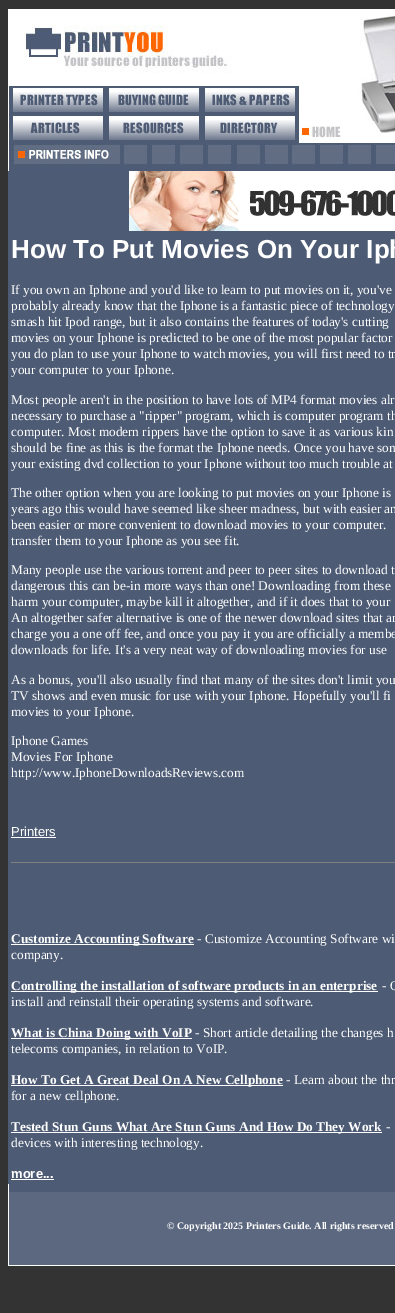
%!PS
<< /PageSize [395 1313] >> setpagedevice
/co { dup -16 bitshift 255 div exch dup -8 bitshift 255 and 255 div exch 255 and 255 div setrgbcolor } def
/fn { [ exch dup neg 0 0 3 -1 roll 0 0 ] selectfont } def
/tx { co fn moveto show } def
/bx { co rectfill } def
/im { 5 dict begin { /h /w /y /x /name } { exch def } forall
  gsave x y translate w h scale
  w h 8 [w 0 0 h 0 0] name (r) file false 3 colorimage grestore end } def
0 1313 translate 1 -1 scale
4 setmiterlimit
0 0 395 1313 16#333333 bx
(media/1.raw) 8 9 387 76 im
(media/2.raw) 8 85 96 29 im
(media/3.raw) 104 85 97 29 im
(media/4.raw) 201 85 99 29 im
(media/5.raw) 300 85 95 58 im
(media/6.raw) 8 114 96 29 im
(media/7.raw) 104 114 97 29 im
(media/8.raw) 201 114 99 29 im
(media/9.raw) 8 143 387 28 im
8 171 387 1013 16#4D5B75 bx
(media/10.raw) 129 171 266 60 im
11 837 45 1 16#FFFFFF bx
11 862 384 1 16#808080 bx
11 944 183 1 16#FFFFFF bx
11 991 367 1 16#FFFFFF bx
11 1038 181 1 16#FFFFFF bx
11 1085 272 1 16#FFFFFF bx
11 1132 371 1 16#FFFFFF bx
11 1179 43 1 16#FFFFFF bx
(media/11.raw) 8 1184 387 82 im
(How To Put Movies On Your Iph) 11 258 /LiberationSans-Bold 26 16#FFFFFF tx
(If you own an Iphone and you'd like to learn to put movies on it, you've) 11 294 /LiberationSerif-Regular 13.3 16#FFFFFF tx
(probably already know that the Iphone is a fantastic piece of technology) 11 310 /LiberationSerif-Regular 13.3 16#FFFFFF tx
(smash hit Ipod range, but it also contains the features of today's cutting) 11 326 /LiberationSerif-Regular 13.3 16#FFFFFF tx
(movies on your Iphone is predicted to be one of the most popular factor) 11 342 /LiberationSerif-Regular 13.3 16#FFFFFF tx
(you do plan to use your Iphone to watch movies, you will first need to tr) 11 358 /LiberationSerif-Regular 13.3 16#FFFFFF tx
(your computer to your Iphone.) 11 374 /LiberationSerif-Regular 13.3 16#FFFFFF tx
(Most people aren't in the position to have lots of MP4 format movies alr) 11 404 /LiberationSerif-Regular 13.3 16#FFFFFF tx
(necessary to purchase a "ripper" program, which is computer program th) 11 420 /LiberationSerif-Regular 13.3 16#FFFFFF tx
(computer. Most modern rippers have the option to save it as various kin) 11 436 /LiberationSerif-Regular 13.3 16#FFFFFF tx
(should be fine as this is the format the Iphone needs. Once you have som) 11 452 /LiberationSerif-Regular 13.3 16#FFFFFF tx
(your existing dvd collection to your Iphone without too much trouble at) 11 468 /LiberationSerif-Regular 13.3 16#FFFFFF tx
(The other option when you are looking to put movies on your Iphone is) 11 497 /LiberationSerif-Regular 13.3 16#FFFFFF tx
(years ago this would have seemed like sheer madness, but with easier an) 11 513 /LiberationSerif-Regular 13.3 16#FFFFFF tx
(been easier or more convenient to download movies to your computer.) 11 529 /LiberationSerif-Regular 13.3 16#FFFFFF tx
(transfer them to your Iphone as you see fit.) 11 545 /LiberationSerif-Regular 13.3 16#FFFFFF tx
(Many people use the various torrent and peer to peer sites to download t) 11 574 /LiberationSerif-Regular 13.3 16#FFFFFF tx
(dangerous this can be-in more ways than one! Downloading from these) 11 590 /LiberationSerif-Regular 13.3 16#FFFFFF tx
(harm your computer, maybe kill it altogether, and if it does that to your) 11 606 /LiberationSerif-Regular 13.3 16#FFFFFF tx
(An altogether safer alternative is one of the newer download sites that ar) 11 622 /LiberationSerif-Regular 13.3 16#FFFFFF tx
(charge you a one off fee, and once you pay it you are officially a membe) 11 638 /LiberationSerif-Regular 13.3 16#FFFFFF tx
(downloads for life. It's a very neat way of downloading movies for use) 11 654 /LiberationSerif-Regular 13.3 16#FFFFFF tx
(As a bonus, you'll also usually find that many of the sites don't limit you) 11 684 /LiberationSerif-Regular 13.3 16#FFFFFF tx
(TV shows and even music for use with your Iphone. Hopefully you'll fi) 11 700 /LiberationSerif-Regular 13.3 16#FFFFFF tx
(movies to your Iphone.) 11 716 /LiberationSerif-Regular 13.3 16#FFFFFF tx
(Iphone Games) 11 745 /LiberationSerif-Regular 13.3 16#FFFFFF tx
(Movies For Iphone) 11 761 /LiberationSerif-Regular 13.3 16#FFFFFF tx
(http://www.IphoneDownloadsReviews.com) 11 777 /LiberationSerif-Regular 13.3 16#FFFFFF tx
(Printers) 11 836 /LiberationSans-Regular 13 16#FFFFFF tx
(Customize Accounting Software) 11 943 /LiberationSerif-Bold 13.3 16#FFFFFF tx
(- Customize Accounting Software wi) 197 943 /LiberationSerif-Regular 13.3 16#FFFFFF tx
(company.) 11 959 /LiberationSerif-Regular 13.3 16#FFFFFF tx
(Controlling the installation of software products in an enterprise) 11 990 /LiberationSerif-Bold 13.3 16#FFFFFF tx
(- O) 382 990 /LiberationSerif-Regular 13.3 16#FFFFFF tx
(install and reinstall their operating systems and software.) 11 1006 /LiberationSerif-Regular 13.3 16#FFFFFF tx
(What is China Doing with VoIP) 11 1037 /LiberationSerif-Bold 13.3 16#FFFFFF tx
(- Short article detailing the changes h) 195 1037 /LiberationSerif-Regular 13.3 16#FFFFFF tx
(telecoms companies, in relation to VoIP.) 11 1053 /LiberationSerif-Regular 13.3 16#FFFFFF tx
(How To Get A Great Deal On A New Cellphone) 11 1084 /LiberationSerif-Bold 13.3 16#FFFFFF tx
(- Learn about the thr) 286 1084 /LiberationSerif-Regular 13.3 16#FFFFFF tx
(for a new cellphone.) 11 1100 /LiberationSerif-Regular 13.3 16#FFFFFF tx
(Tested Stun Guns What Are Stun Guns And How Do They Work) 11 1131 /LiberationSerif-Bold 13.3 16#FFFFFF tx
(-) 386 1131 /LiberationSerif-Regular 13.3 16#FFFFFF tx
(devices with interesting technology.) 11 1147 /LiberationSerif-Regular 13.3 16#FFFFFF tx
(more...) 11 1178 /LiberationSans-Bold 13 16#FFFFFF tx
(© Copyright 2025 Printers Guide. All rights reserved) 167 1229 /LiberationSerif-Bold 10 16#FFFFFF tx
showpage
